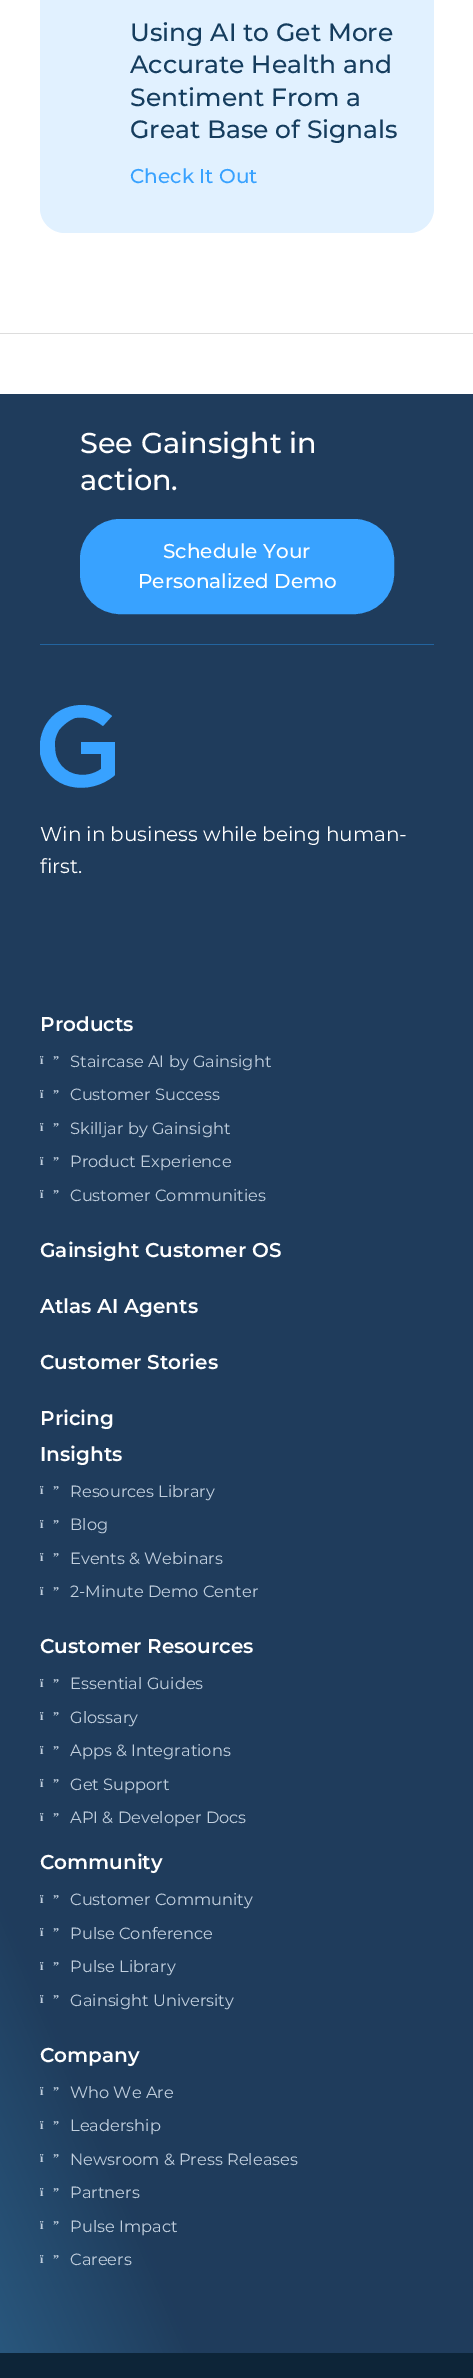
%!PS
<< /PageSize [473 2378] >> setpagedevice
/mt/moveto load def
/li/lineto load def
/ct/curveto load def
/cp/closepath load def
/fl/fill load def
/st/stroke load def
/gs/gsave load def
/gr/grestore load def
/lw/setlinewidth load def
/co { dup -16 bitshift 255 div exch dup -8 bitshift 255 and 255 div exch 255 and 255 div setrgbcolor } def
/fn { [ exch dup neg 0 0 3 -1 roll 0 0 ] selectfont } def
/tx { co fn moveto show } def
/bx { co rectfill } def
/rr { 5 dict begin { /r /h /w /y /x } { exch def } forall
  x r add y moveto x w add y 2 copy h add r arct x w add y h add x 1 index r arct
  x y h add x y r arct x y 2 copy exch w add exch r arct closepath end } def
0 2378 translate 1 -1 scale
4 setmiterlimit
0 0 473 2378 16#FFFFFF bx
16#E1F1FF co
40 -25 394 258 25 rr fl
0 333 473 1 16#DDDDDD bx
gs 0 394 mt 473 394 li 473 2353 li 0 2353 li cp clip newpath
<< /ShadingType 2 /ColorSpace /DeviceRGB /Coords [-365 1765 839 1254] /Extend [true true] /Function << /FunctionType 3 /Domain [0 1] /Functions [<< /FunctionType 2 /Domain [0 1] /C0 [.184 .404 .565] /C1 [.122 .235 .361] /N 1 >> << /FunctionType 2 /Domain [0 1] /C0 [.122 .235 .361] /C1 [.122 .235 .361] /N 1 >>] /Bounds [.22] /Encode [0 1 0 1] >> >> shfill gr
16#38A2FF co
81.5 520.5 311 92 38.5 rr gs fl gr
3 lw
st
40 644 394 1 16#22649F bx
gs
40 705 75 83 rectclip
16#38A2FF co
81 742 mt 81 754 li 101 754 li 101 769 li 89 778 70 777 61 765 ct 56 759 55 753 55 746 ct 54 741 56 735 59 730 ct 63 725 69 720 75 718 ct 86 716 95 720 103 726 ct 112 716 li 101 707 87 703 73 706 ct 62 708 53 714 47 723 ct 41 732 39 743 40 753 ct 46 791 90 797 115 775 ct 115 742 li cp fl
gr
0 2353 473 25 16#0D2538 bx
(Using AI to Get More) 130 41 /Montserrat-Medium 25 16#153D5E tx
(Accurate Health and) 130 73 /Montserrat-Medium 25 16#153D5E tx
(Sentiment From a) 130 106 /Montserrat-Medium 25 16#153D5E tx
(Great Base of Signals) 130 138 /Montserrat-Medium 25 16#153D5E tx
(Check It Out) 130 183 /Montserrat-Medium 20 16#38A2FF tx
(See Gainsight in) 80 453 /Montserrat-Medium 28.75 16#FFFFFF tx
(action.) 80 490 /Montserrat-Medium 28.75 16#FFFFFF tx
(Schedule Your) 163 558 /Montserrat-Medium 20 16#FFFFFF tx
(Personalized Demo) 138 588 /Montserrat-Medium 20 16#FFFFFF tx
(Win in business while being human-) 40 841 /Montserrat-Regular 20 16#FFFFFF tx
(first.) 40 873 /Montserrat-Regular 20 16#FFFFFF tx
(Products) 40 1031 /Montserrat-SemiBold 20 16#FFFFFF tx
(ï) 40 1064 /LiberationSerif-Bold 12 16#C1CFDE tx
(”) 53 1064 /LiberationSerif-Bold 12 16#C1CFDE tx
(Staircase AI by Gainsight) 70 1067 /Montserrat-Regular 16.25 16#C1CFDE tx
(ï) 40 1098 /LiberationSerif-Bold 12 16#C1CFDE tx
(”) 53 1098 /LiberationSerif-Bold 12 16#C1CFDE tx
(Customer Success) 70 1100 /Montserrat-Regular 16.25 16#C1CFDE tx
(ï) 40 1131 /LiberationSerif-Bold 12 16#C1CFDE tx
(”) 53 1131 /LiberationSerif-Bold 12 16#C1CFDE tx
(Skilljar by Gainsight) 70 1134 /Montserrat-Regular 16.25 16#C1CFDE tx
(ï) 40 1165 /LiberationSerif-Bold 12 16#C1CFDE tx
(”) 53 1165 /LiberationSerif-Bold 12 16#C1CFDE tx
(Product Experience) 70 1167 /Montserrat-Regular 16.25 16#C1CFDE tx
(ï) 40 1198 /LiberationSerif-Bold 12 16#C1CFDE tx
(”) 53 1198 /LiberationSerif-Bold 12 16#C1CFDE tx
(Customer Communities) 70 1201 /Montserrat-Regular 16.25 16#C1CFDE tx
(Gainsight Customer OS) 40 1257 /Montserrat-SemiBold 20 16#FFFFFF tx
(Atlas AI Agents) 40 1313 /Montserrat-SemiBold 20 16#FFFFFF tx
(Customer Stories) 40 1369 /Montserrat-SemiBold 20 16#FFFFFF tx
(Pricing) 40 1425 /Montserrat-SemiBold 20 16#FFFFFF tx
(Insights) 40 1461 /Montserrat-SemiBold 20 16#FFFFFF tx
(ï) 40 1494 /LiberationSerif-Bold 12 16#C1CFDE tx
(”) 53 1494 /LiberationSerif-Bold 12 16#C1CFDE tx
(Resources Library) 70 1497 /Montserrat-Regular 16.25 16#C1CFDE tx
(ï) 40 1528 /LiberationSerif-Bold 12 16#C1CFDE tx
(”) 53 1528 /LiberationSerif-Bold 12 16#C1CFDE tx
(Blog) 70 1530 /Montserrat-Regular 16.25 16#C1CFDE tx
(ï) 40 1561 /LiberationSerif-Bold 12 16#C1CFDE tx
(”) 53 1561 /LiberationSerif-Bold 12 16#C1CFDE tx
(Events & Webinars) 70 1564 /Montserrat-Regular 16.25 16#C1CFDE tx
(ï) 40 1595 /LiberationSerif-Bold 12 16#C1CFDE tx
(”) 53 1595 /LiberationSerif-Bold 12 16#C1CFDE tx
(2-Minute Demo Center) 70 1597 /Montserrat-Regular 16.25 16#C1CFDE tx
(Customer Resources) 40 1653 /Montserrat-SemiBold 20 16#FFFFFF tx
(ï) 40 1687 /LiberationSerif-Bold 12 16#C1CFDE tx
(”) 53 1687 /LiberationSerif-Bold 12 16#C1CFDE tx
(Essential Guides) 70 1689 /Montserrat-Regular 16.25 16#C1CFDE tx
(ï) 40 1720 /LiberationSerif-Bold 12 16#C1CFDE tx
(”) 53 1720 /LiberationSerif-Bold 12 16#C1CFDE tx
(Glossary) 70 1723 /Montserrat-Regular 16.25 16#C1CFDE tx
(ï) 40 1754 /LiberationSerif-Bold 12 16#C1CFDE tx
(”) 53 1754 /LiberationSerif-Bold 12 16#C1CFDE tx
(Apps & Integrations) 70 1756 /Montserrat-Regular 16.25 16#C1CFDE tx
(ï) 40 1787 /LiberationSerif-Bold 12 16#C1CFDE tx
(”) 53 1787 /LiberationSerif-Bold 12 16#C1CFDE tx
(Get Support) 70 1790 /Montserrat-Regular 16.25 16#C1CFDE tx
(ï) 40 1821 /LiberationSerif-Bold 12 16#C1CFDE tx
(”) 53 1821 /LiberationSerif-Bold 12 16#C1CFDE tx
(API & Developer Docs) 70 1823 /Montserrat-Regular 16.25 16#C1CFDE tx
(Community) 40 1869 /Montserrat-SemiBold 20 16#FFFFFF tx
(ï) 40 1903 /LiberationSerif-Bold 12 16#C1CFDE tx
(”) 53 1903 /LiberationSerif-Bold 12 16#C1CFDE tx
(Customer Community) 70 1905 /Montserrat-Regular 16.25 16#C1CFDE tx
(ï) 40 1936 /LiberationSerif-Bold 12 16#C1CFDE tx
(”) 53 1936 /LiberationSerif-Bold 12 16#C1CFDE tx
(Pulse Conference) 70 1939 /Montserrat-Regular 16.25 16#C1CFDE tx
(ï) 40 1970 /LiberationSerif-Bold 12 16#C1CFDE tx
(”) 53 1970 /LiberationSerif-Bold 12 16#C1CFDE tx
(Pulse Library) 70 1972 /Montserrat-Regular 16.25 16#C1CFDE tx
(ï) 40 2003 /LiberationSerif-Bold 12 16#C1CFDE tx
(”) 53 2003 /LiberationSerif-Bold 12 16#C1CFDE tx
(Gainsight University) 70 2006 /Montserrat-Regular 16.25 16#C1CFDE tx
(Company) 40 2062 /Montserrat-SemiBold 20 16#FFFFFF tx
(ï) 40 2095 /LiberationSerif-Bold 12 16#C1CFDE tx
(”) 53 2095 /LiberationSerif-Bold 12 16#C1CFDE tx
(Who We Are) 70 2098 /Montserrat-Regular 16.25 16#C1CFDE tx
(ï) 40 2129 /LiberationSerif-Bold 12 16#C1CFDE tx
(”) 53 2129 /LiberationSerif-Bold 12 16#C1CFDE tx
(Leadership) 70 2131 /Montserrat-Regular 16.25 16#C1CFDE tx
(ï) 40 2162 /LiberationSerif-Bold 12 16#C1CFDE tx
(”) 53 2162 /LiberationSerif-Bold 12 16#C1CFDE tx
(Newsroom & Press Releases) 70 2165 /Montserrat-Regular 16.25 16#C1CFDE tx
(ï) 40 2196 /LiberationSerif-Bold 12 16#C1CFDE tx
(”) 53 2196 /LiberationSerif-Bold 12 16#C1CFDE tx
(Partners) 70 2198 /Montserrat-Regular 16.25 16#C1CFDE tx
(ï) 40 2229 /LiberationSerif-Bold 12 16#C1CFDE tx
(”) 53 2229 /LiberationSerif-Bold 12 16#C1CFDE tx
(Pulse Impact) 70 2232 /Montserrat-Regular 16.25 16#C1CFDE tx
(ï) 40 2263 /LiberationSerif-Bold 12 16#C1CFDE tx
(”) 53 2263 /LiberationSerif-Bold 12 16#C1CFDE tx
(Careers) 70 2265 /Montserrat-Regular 16.25 16#C1CFDE tx
showpage
